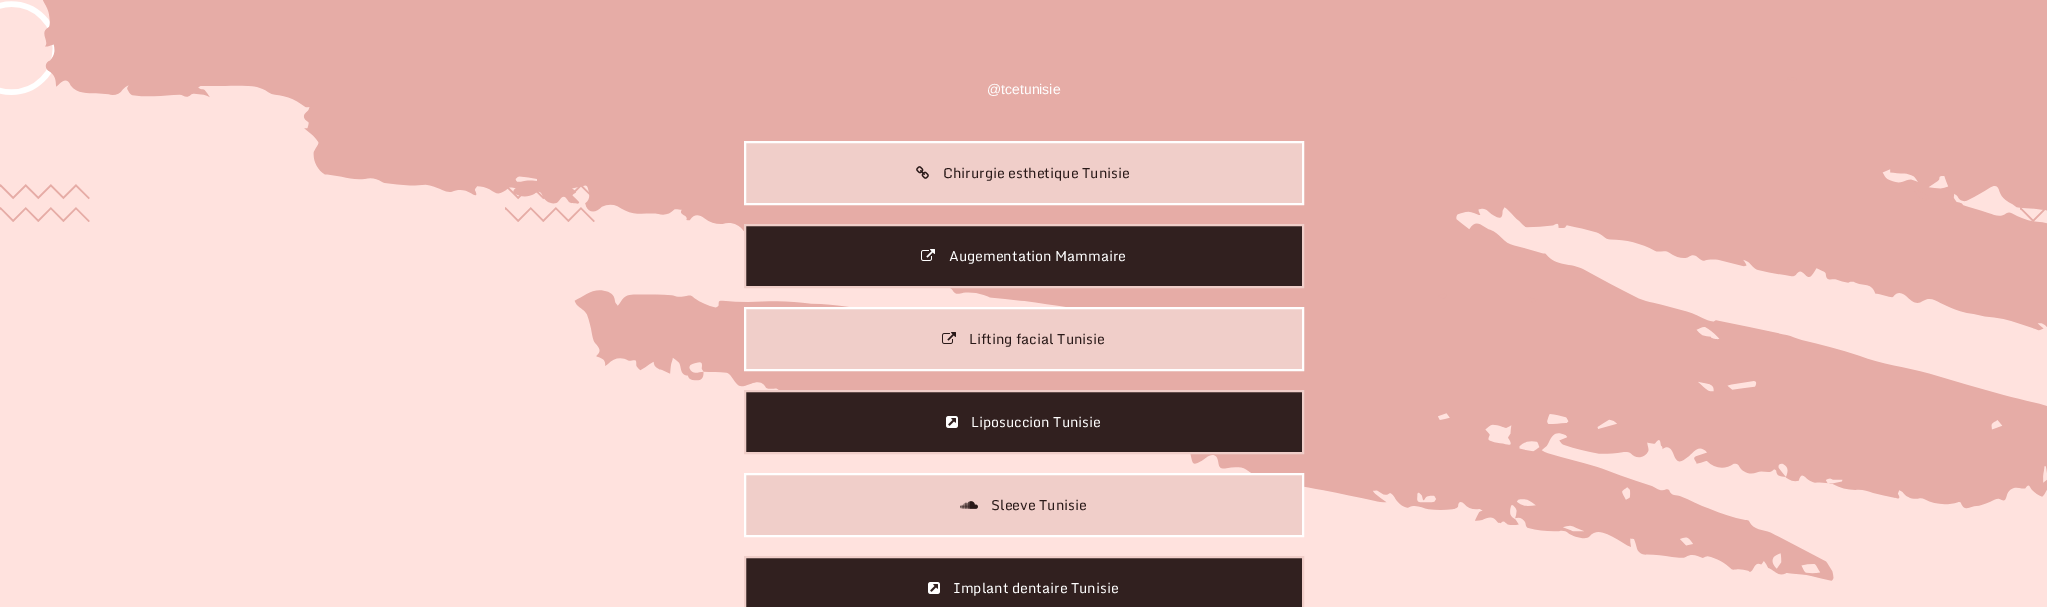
%!PS
<< /PageSize [2047 607] >> setpagedevice
/mt/moveto load def
/li/lineto load def
/cp/closepath load def
/fl/fill load def
/st/stroke load def
/gs/gsave load def
/gr/grestore load def
/lw/setlinewidth load def
/co { dup -16 bitshift 255 div exch dup -8 bitshift 255 and 255 div exch 255 and 255 div setrgbcolor } def
/fn { [ exch dup neg 0 0 3 -1 roll 0 0 ] selectfont } def
/tx { co fn moveto show } def
/bx { co rectfill } def
/im { 5 dict begin { /h /w /y /x /name } { exch def } forall
  gsave x y translate w h scale
  w h 8 [w 0 0 h 0 0] name (r) file false 3 colorimage grestore end } def
0 607 translate 1 -1 scale
4 setmiterlimit
0 0 2047 607 16#FFE2DE bx
(media/1.raw) 0 1 2047 221 im
(media/2.raw) 43 0 2004 581 im
16#F0CEC9 co
745 142 mt 1303 142 li 1303 204 li 745 204 li cp gs fl gr
16#FFFFFF co
2 lw
st
(media/3.raw) 916 166 13 13 im
16#31201F co
745 225 mt 1303 225 li 1303 287 li 745 287 li cp gs fl gr
16#F0CEC9 co
st
(media/4.raw) 921 249 14 12 im
745 308 mt 1303 308 li 1303 370 li 745 370 li cp gs fl gr
16#FFFFFF co
st
(media/5.raw) 942 332 14 12 im
16#31201F co
745 391 mt 1303 391 li 1303 453 li 745 453 li cp gs fl gr
16#F0CEC9 co
st
(media/6.raw) 946 416 12 12 im
745 474 mt 1303 474 li 1303 536 li 745 536 li cp gs fl gr
16#FFFFFF co
st
(media/7.raw) 960 501 18 8 im
16#31201F co
745 557 mt 1303 557 li 1303 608 li 745 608 li cp gs fl gr
16#F0CEC9 co
st
(media/6.raw) 928 582 12 12 im
(@tcetunisie) 987 94 /LiberationSans-Regular 14 16#FFFFFF tx
(Chirurgie esthetique Tunisie) 943 178 /Monda-Regular 14 16#291918 tx
(Augementation Mammaire) 949 261 /Monda-Regular 14 16#FFFFFF tx
(Lifting facial Tunisie) 969 344 /Monda-Regular 14 16#291918 tx
(Liposuccion Tunisie) 971 427 /Monda-Regular 14 16#FFFFFF tx
(Sleeve Tunisie) 991 510 /Monda-Regular 14 16#291918 tx
(Implant dentaire Tunisie) 953 593 /Monda-Regular 14 16#FFFFFF tx
showpage
